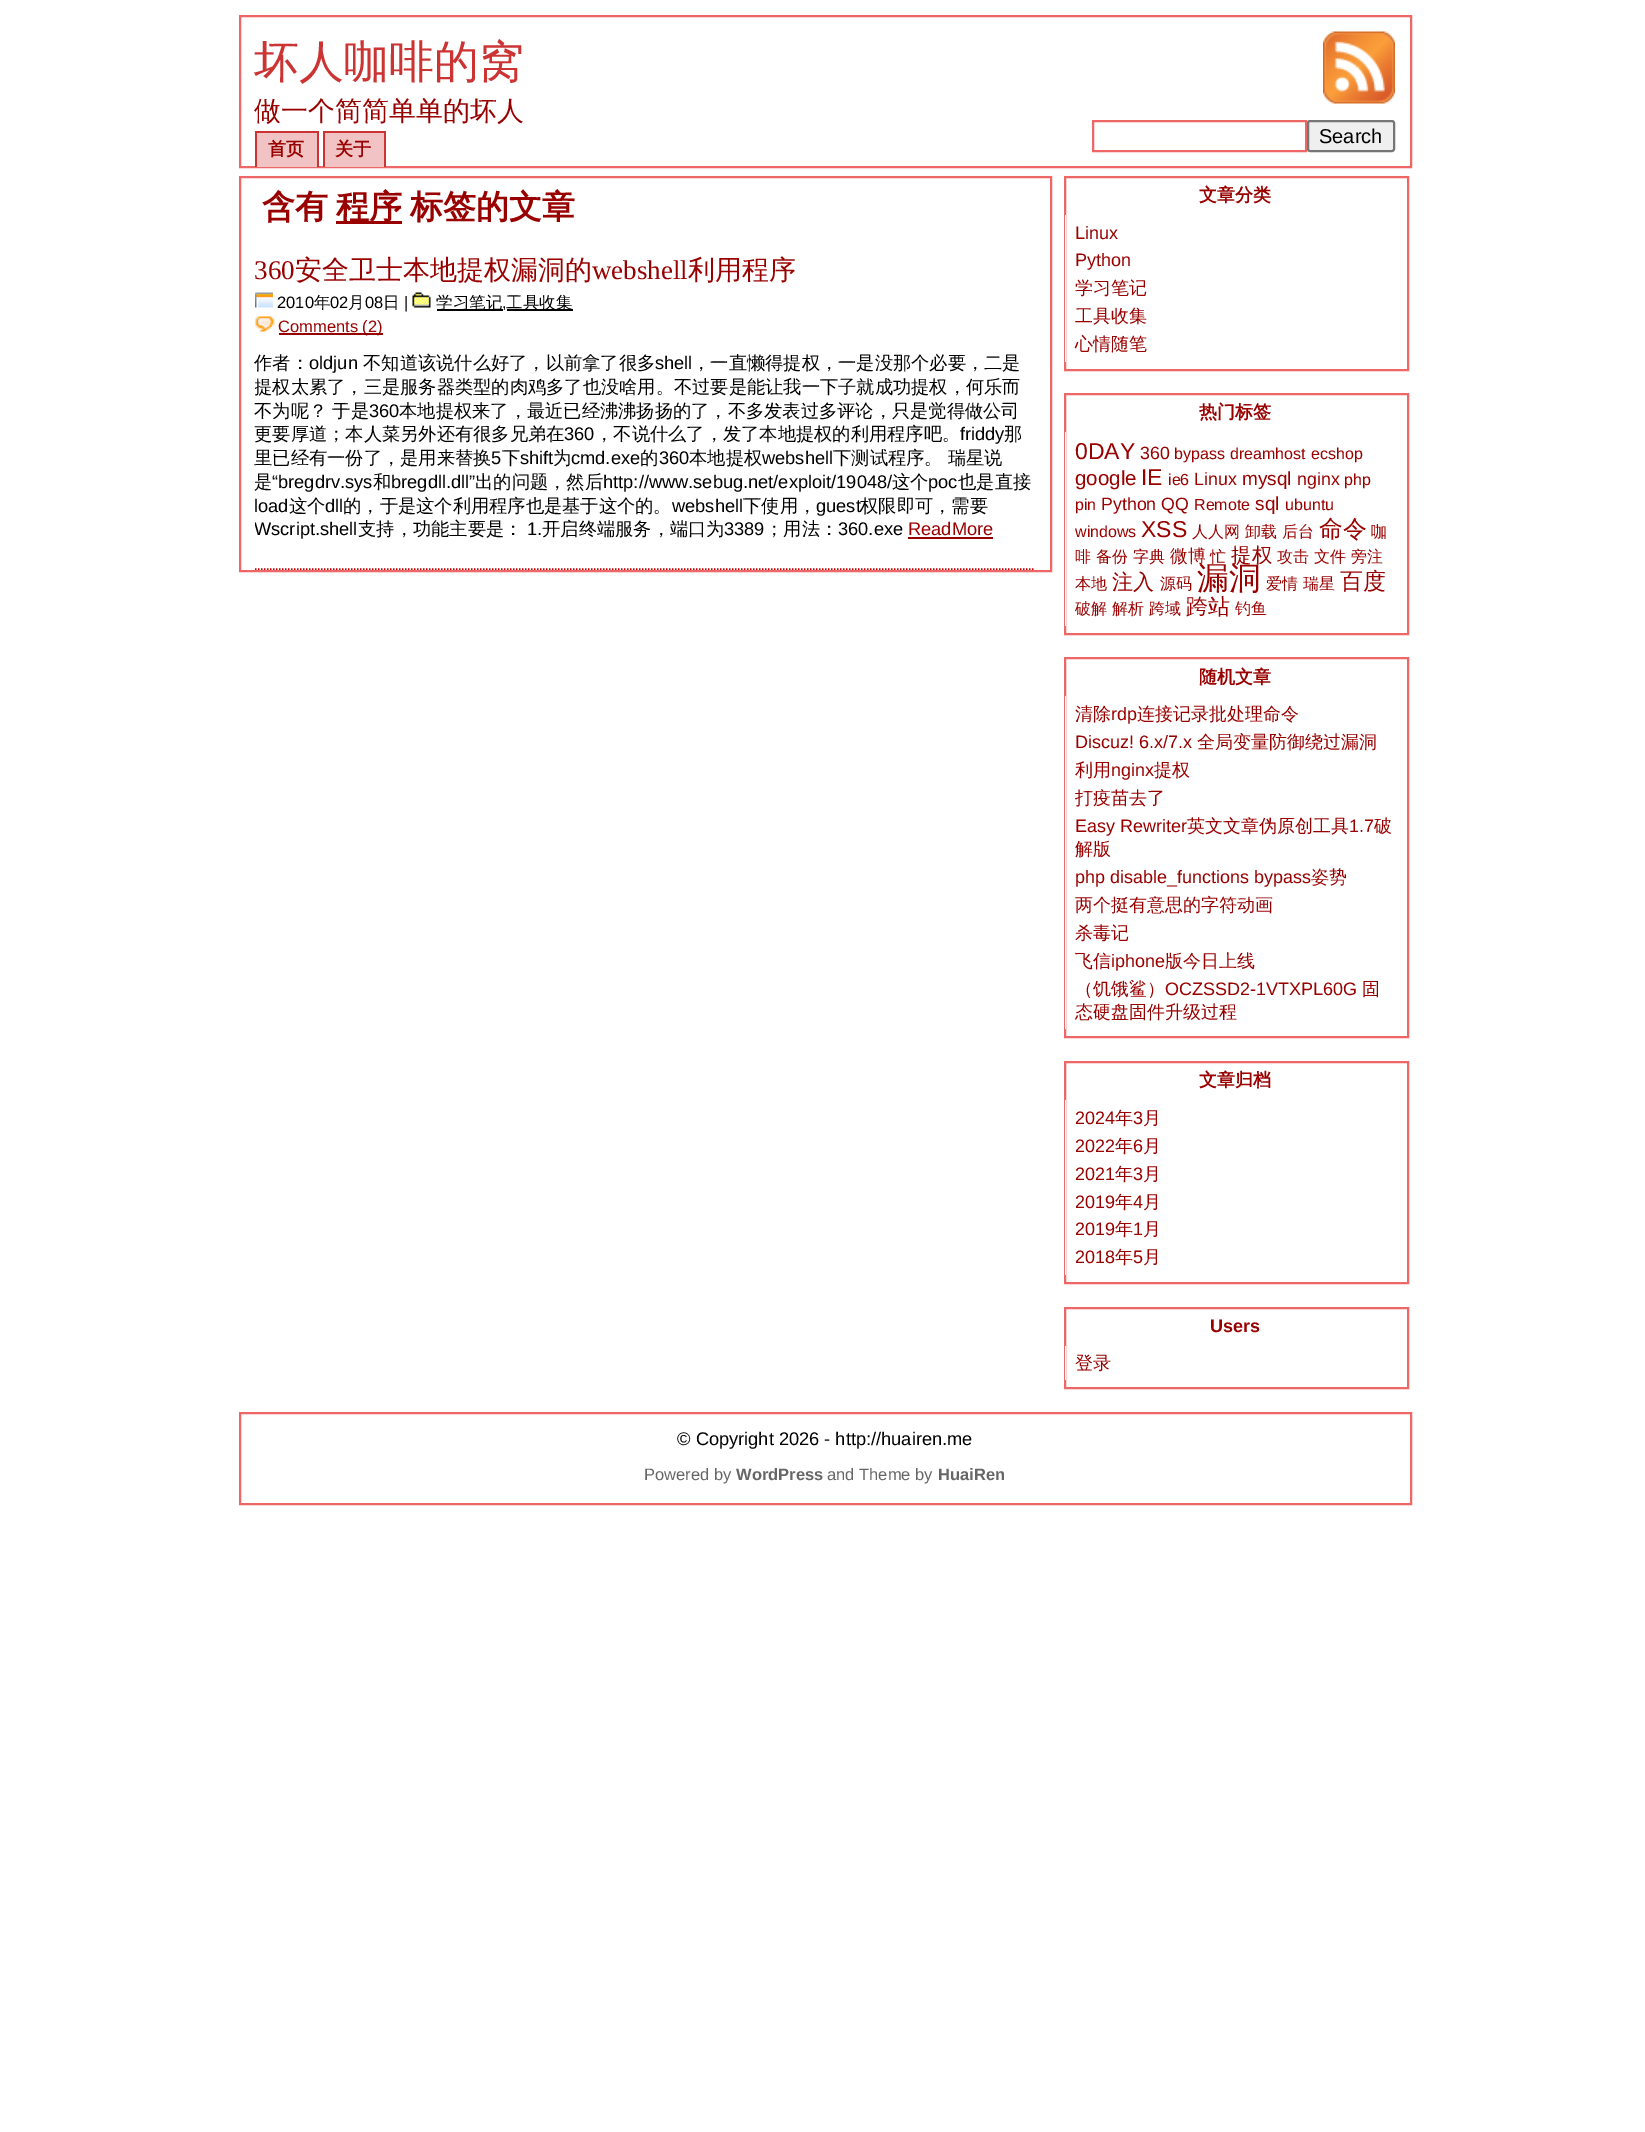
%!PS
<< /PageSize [1645 2132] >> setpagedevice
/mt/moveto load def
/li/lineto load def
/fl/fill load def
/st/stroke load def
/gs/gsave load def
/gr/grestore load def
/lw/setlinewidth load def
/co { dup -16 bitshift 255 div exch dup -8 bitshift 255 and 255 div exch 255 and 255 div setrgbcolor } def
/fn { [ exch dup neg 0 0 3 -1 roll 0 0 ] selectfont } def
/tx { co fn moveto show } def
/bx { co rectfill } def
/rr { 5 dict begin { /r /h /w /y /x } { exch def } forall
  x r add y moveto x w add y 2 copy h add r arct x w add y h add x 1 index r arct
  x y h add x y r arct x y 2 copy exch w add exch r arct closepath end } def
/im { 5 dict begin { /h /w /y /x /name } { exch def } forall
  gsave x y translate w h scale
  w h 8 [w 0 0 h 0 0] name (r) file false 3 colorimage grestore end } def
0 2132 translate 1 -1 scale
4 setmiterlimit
0 0 1645 2132 16#FFFFFF bx
16#EE6666 co
2 lw
240 16 1171 151 rectstroke
(media/1.raw) 1323 31 72 73 im
1093 121 213 30 rectstroke
16#EFEFEF co
1308 121 86 30 2 rr gs fl gr
16#767676 co
st
257 133 60 34 16#F2C3C4 bx
255 131 63 2 16#CC3333 bx
317 131 2 36 16#CC3333 bx
255 131 2 36 16#CC3333 bx
325 133 59 34 16#F2C3C4 bx
323 131 63 2 16#CC3333 bx
384 131 2 36 16#CC3333 bx
323 131 2 36 16#CC3333 bx
16#EE6666 co
240 177 811 394 rectstroke
336 221 66 3 16#990000 bx
16#CC0000 co
1.5 lw
[1.5 1.5] 0 setdash
255 569 mt 1035 569 li st
(media/2.raw) 255 292 18 16 im
(media/3.raw) 412 292 19 16 im
437 309 66 2 16#000000 bx
507 309 66 2 16#000000 bx
(media/4.raw) 255 316 20 16 im
279 333 104 2 16#990000 bx
908 537 85 2 16#990000 bx
16#EE6666 co
2 lw
[] 0 setdash
1065 177 343 193 rectstroke
1065 215 1 147 16#FFFFFF bx
16#EE6666 co
1065 394 343 240 rectstroke
1065 432 1 194 16#FFFFFF bx
16#EE6666 co
1065 658 343 379 rectstroke
1065 696 1 333 16#FFFFFF bx
16#EE6666 co
1065 1062 343 221 rectstroke
1065 1100 1 175 16#FFFFFF bx
16#EE6666 co
1065 1308 343 80 rectstroke
1065 1346 1 34 16#FFFFFF bx
16#EE6666 co
240 1413 1171 91 rectstroke
(坏人咖啡的窝) 254 77 /WenQuanYiZenHei-Medium 45 16#CC3333 tx
(做一个简简单单的坏人) 254 120 /WenQuanYiZenHei-Medium 27 16#990000 tx
(Search) 1319 143 /LiberationSans-Regular 20 16#000000 tx
(首页) 268 155 /WenQuanYiZenHei-Bold 18 16#990000 tx
(关于) 335 155 /WenQuanYiZenHei-Bold 18 16#990000 tx
(含有) 262 218 /WenQuanYiZenHei-Bold 33 16#990000 tx
(程序) 336 218 /WenQuanYiZenHei-Bold 33 16#990000 tx
(标签的文章) 410 218 /WenQuanYiZenHei-Bold 33 16#990000 tx
(360) 254 279 /LiberationSerif-Regular 27 16#990000 tx
(安全卫士本地提权漏洞的) 295 279 /WenQuanYiZenHei-Medium 27 16#990000 tx
(webshell) 592 279 /LiberationSerif-Regular 27 16#990000 tx
(利用程序) 688 279 /WenQuanYiZenHei-Medium 27 16#990000 tx
(2010) 277 308 /LiberationSans-Regular 16.5 16#000000 tx
(年) 314 308 /WenQuanYiZenHei-Medium 16.5 16#000000 tx
(02) 330 308 /LiberationSans-Regular 16.5 16#000000 tx
(月) 348 308 /WenQuanYiZenHei-Medium 16.5 16#000000 tx
(08) 365 308 /LiberationSans-Regular 16.5 16#000000 tx
(日) 383 308 /WenQuanYiZenHei-Medium 16.5 16#000000 tx
(|) 404 308 /LiberationSans-Regular 16.5 16#000000 tx
(学习笔记) 436 308 /WenQuanYiZenHei-Medium 16.5 16#000000 tx
(,) 502 308 /LiberationSans-Regular 16.5 16#000000 tx
(工具收集) 506 308 /WenQuanYiZenHei-Medium 16.5 16#000000 tx
(Comments \(2\)) 278 332 /LiberationSans-Regular 16.5 16#990000 tx
(作者：) 254 369 /WenQuanYiZenHei-Medium 18.25 16#000000 tx
(oldjun) 309 369 /LiberationSans-Regular 18.25 16#000000 tx
(不知道该说什么好了，以前拿了很多) 363 369 /WenQuanYiZenHei-Medium 18.25 16#000000 tx
(shell) 655 369 /LiberationSans-Regular 18.25 16#000000 tx
(，一直懒得提权，一是没那个必要，二是) 692 369 /WenQuanYiZenHei-Medium 18.25 16#000000 tx
gs
255 237 780 332 rectclip
(提权太累了，三是服务器类型的肉鸡多了也没啥用。不过要是能让我一下子就成功提权，何乐而) 254 393 /WenQuanYiZenHei-Medium 18.25 16#000000 tx
gr
(不为呢？ 于是) 254 417 /WenQuanYiZenHei-Medium 18.25 16#000000 tx
(360) 369 417 /LiberationSans-Regular 18.25 16#000000 tx
(本地提权来了，最近已经沸沸扬扬的了，不多发表过多评论，只是觉得做公司) 399 417 /WenQuanYiZenHei-Medium 18.25 16#000000 tx
(更要厚道；本人菜另外还有很多兄弟在) 254 440 /WenQuanYiZenHei-Medium 18.25 16#000000 tx
(360) 564 440 /LiberationSans-Regular 18.25 16#000000 tx
(，不说什么了，发了本地提权的利用程序吧。) 595 440 /WenQuanYiZenHei-Medium 18.25 16#000000 tx
(friddy) 960 440 /LiberationSans-Regular 18.25 16#000000 tx
(那) 1004 440 /WenQuanYiZenHei-Medium 18.25 16#000000 tx
(里已经有一份了，是用来替换) 254 464 /WenQuanYiZenHei-Medium 18.25 16#000000 tx
(5) 491 464 /LiberationSans-Regular 18.25 16#000000 tx
(下) 502 464 /WenQuanYiZenHei-Medium 18.25 16#000000 tx
(shift) 520 464 /LiberationSans-Regular 18.25 16#000000 tx
(为) 553 464 /WenQuanYiZenHei-Medium 18.25 16#000000 tx
(cmd.exe) 571 464 /LiberationSans-Regular 18.25 16#000000 tx
(的) 640 464 /WenQuanYiZenHei-Medium 18.25 16#000000 tx
(360) 659 464 /LiberationSans-Regular 18.25 16#000000 tx
(本地提权) 689 464 /WenQuanYiZenHei-Medium 18.25 16#000000 tx
(webshell) 762 464 /LiberationSans-Regular 18.25 16#000000 tx
(下测试程序。 瑞星说) 833 464 /WenQuanYiZenHei-Medium 18.25 16#000000 tx
(是) 254 488 /WenQuanYiZenHei-Medium 18.25 16#000000 tx
(“bregdrv.sys) 272 488 /LiberationSans-Regular 18.25 16#000000 tx
(和) 373 488 /WenQuanYiZenHei-Medium 18.25 16#000000 tx
(bregdll.dll”) 391 488 /LiberationSans-Regular 18.25 16#000000 tx
(出的问题，然后) 475 488 /WenQuanYiZenHei-Medium 18.25 16#000000 tx
(http://www.sebug.net/exploit/19048/) 603 488 /LiberationSans-Regular 18.25 16#000000 tx
(这个) 892 488 /WenQuanYiZenHei-Medium 18.25 16#000000 tx
(poc) 928 488 /LiberationSans-Regular 18.25 16#000000 tx
(也是直接) 958 488 /WenQuanYiZenHei-Medium 18.25 16#000000 tx
(load) 254 512 /LiberationSans-Regular 18.25 16#000000 tx
(这个) 289 512 /WenQuanYiZenHei-Medium 18.25 16#000000 tx
(dll) 325 512 /LiberationSans-Regular 18.25 16#000000 tx
(的，于是这个利用程序也是基于这个的。) 343 512 /WenQuanYiZenHei-Medium 18.25 16#000000 tx
(webshell) 672 512 /LiberationSans-Regular 18.25 16#000000 tx
(下使用，) 743 512 /WenQuanYiZenHei-Medium 18.25 16#000000 tx
(guest) 816 512 /LiberationSans-Regular 18.25 16#000000 tx
(权限即可，需要) 860 512 /WenQuanYiZenHei-Medium 18.25 16#000000 tx
gs
255 237 780 332 rectclip
(Wscript.shell) 254 535 /LiberationSans-Regular 18.25 16#000000 tx
gr
(支持，功能主要是：) 358 535 /WenQuanYiZenHei-Medium 18.25 16#000000 tx
(1.) 527 535 /LiberationSans-Regular 18.25 16#000000 tx
(开启终端服务，端口为) 542 535 /WenQuanYiZenHei-Medium 18.25 16#000000 tx
(3389) 724 535 /LiberationSans-Regular 18.25 16#000000 tx
(；用法：) 765 535 /WenQuanYiZenHei-Medium 18.25 16#000000 tx
(360.exe) 838 535 /LiberationSans-Regular 18.25 16#000000 tx
(ReadMore) 908 535 /LiberationSans-Regular 18.25 16#990000 tx
(文章分类) 1199 201 /WenQuanYiZenHei-Bold 18 16#990000 tx
(Linux) 1075 239 /LiberationSans-Regular 18 16#990000 tx
(Python) 1075 266 /LiberationSans-Regular 18 16#990000 tx
(学习笔记) 1075 294 /WenQuanYiZenHei-Medium 18 16#990000 tx
(工具收集) 1075 322 /WenQuanYiZenHei-Medium 18 16#990000 tx
(心情随笔) 1075 350 /WenQuanYiZenHei-Medium 18 16#990000 tx
(热门标签) 1199 418 /WenQuanYiZenHei-Bold 18 16#990000 tx
(0DAY) 1075 459 /LiberationSans-Regular 23 16#990000 tx
(360) 1140 459 /LiberationSans-Regular 17.75 16#990000 tx
(bypass) 1174 459 /LiberationSans-Regular 16 16#990000 tx
(dreamhost) 1230 459 /LiberationSans-Regular 16 16#990000 tx
(ecshop) 1311 459 /LiberationSans-Regular 16 16#990000 tx
(google) 1075 485 /LiberationSans-Regular 20.5 16#990000 tx
(IE) 1141 485 /LiberationSans-Regular 23 16#990000 tx
(ie6) 1168 485 /LiberationSans-Regular 16 16#990000 tx
(Linux) 1194 485 /LiberationSans-Regular 17.75 16#990000 tx
(mysql) 1242 485 /LiberationSans-Regular 19 16#990000 tx
(nginx) 1297 485 /LiberationSans-Regular 17.75 16#990000 tx
(php) 1344 485 /LiberationSans-Regular 16 16#990000 tx
(pin) 1075 510 /LiberationSans-Regular 16 16#990000 tx
(Python QQ) 1101 510 /LiberationSans-Regular 17.75 16#990000 tx
(Remote) 1194 510 /LiberationSans-Regular 16 16#990000 tx
(sql) 1255 510 /LiberationSans-Regular 19 16#990000 tx
(ubuntu) 1285 510 /LiberationSans-Regular 16 16#990000 tx
(windows) 1075 537 /LiberationSans-Regular 16 16#990000 tx
(XSS) 1141 537 /LiberationSans-Regular 23 16#990000 tx
(人人网 卸载 后台) 1192 537 /WenQuanYiZenHei-Medium 16 16#990000 tx
(命令) 1319 537 /WenQuanYiZenHei-Medium 24 16#990000 tx
(咖) 1371 537 /WenQuanYiZenHei-Medium 16 16#990000 tx
(啡 备份 字典) 1075 562 /WenQuanYiZenHei-Medium 16 16#990000 tx
(微博) 1170 562 /WenQuanYiZenHei-Medium 17.75 16#990000 tx
(忙) 1210 562 /WenQuanYiZenHei-Medium 16 16#990000 tx
(提权) 1231 562 /WenQuanYiZenHei-Medium 20.5 16#990000 tx
(攻击 文件 旁注) 1277 562 /WenQuanYiZenHei-Medium 16 16#990000 tx
(本地) 1075 589 /WenQuanYiZenHei-Medium 16 16#990000 tx
(注入) 1112 589 /WenQuanYiZenHei-Medium 21 16#990000 tx
(源码) 1160 589 /WenQuanYiZenHei-Medium 16 16#990000 tx
(漏洞) 1197 589 /WenQuanYiZenHei-Medium 32 16#990000 tx
(爱情 瑞星) 1266 589 /WenQuanYiZenHei-Medium 16 16#990000 tx
(百度) 1340 589 /WenQuanYiZenHei-Medium 23 16#990000 tx
(破解 解析 跨域) 1075 614 /WenQuanYiZenHei-Medium 16 16#990000 tx
(跨站) 1186 614 /WenQuanYiZenHei-Medium 22 16#990000 tx
(钓鱼) 1235 614 /WenQuanYiZenHei-Medium 16 16#990000 tx
(随机文章) 1199 683 /WenQuanYiZenHei-Bold 18 16#990000 tx
(清除) 1075 720 /WenQuanYiZenHei-Medium 18 16#990000 tx
(rdp) 1111 720 /LiberationSans-Regular 18 16#990000 tx
(连接记录批处理命令) 1137 720 /WenQuanYiZenHei-Medium 18 16#990000 tx
(Discuz! 6.x/7.x) 1075 748 /LiberationSans-Regular 18 16#990000 tx
(全局变量防御绕过漏洞) 1197 748 /WenQuanYiZenHei-Medium 18 16#990000 tx
(利用) 1075 776 /WenQuanYiZenHei-Medium 18 16#990000 tx
(nginx) 1111 776 /LiberationSans-Regular 18 16#990000 tx
(提权) 1154 776 /WenQuanYiZenHei-Medium 18 16#990000 tx
(打疫苗去了) 1075 804 /WenQuanYiZenHei-Medium 18 16#990000 tx
(Easy Rewriter) 1075 832 /LiberationSans-Regular 18 16#990000 tx
(英文文章伪原创工具) 1187 832 /WenQuanYiZenHei-Medium 18 16#990000 tx
(1.7) 1349 832 /LiberationSans-Regular 18 16#990000 tx
(破) 1374 832 /WenQuanYiZenHei-Medium 18 16#990000 tx
(解版) 1075 855 /WenQuanYiZenHei-Medium 18 16#990000 tx
(php disable_functions bypass) 1075 883 /LiberationSans-Regular 18 16#990000 tx
(姿势) 1311 883 /WenQuanYiZenHei-Medium 18 16#990000 tx
(两个挺有意思的字符动画) 1075 911 /WenQuanYiZenHei-Medium 18 16#990000 tx
(杀毒记) 1075 939 /WenQuanYiZenHei-Medium 18 16#990000 tx
(飞信) 1075 967 /WenQuanYiZenHei-Medium 18 16#990000 tx
(iphone) 1111 967 /LiberationSans-Regular 18 16#990000 tx
(版今日上线) 1165 967 /WenQuanYiZenHei-Medium 18 16#990000 tx
(（饥饿鲨）) 1075 995 /WenQuanYiZenHei-Medium 18 16#990000 tx
(OCZSSD2-1VTXPL60G) 1165 995 /LiberationSans-Regular 18 16#990000 tx
(固) 1362 995 /WenQuanYiZenHei-Medium 18 16#990000 tx
(态硬盘固件升级过程) 1075 1018 /WenQuanYiZenHei-Medium 18 16#990000 tx
(文章归档) 1199 1086 /WenQuanYiZenHei-Bold 18 16#990000 tx
(2024) 1075 1124 /LiberationSans-Regular 18 16#990000 tx
(年) 1115 1124 /WenQuanYiZenHei-Medium 18 16#990000 tx
(3) 1133 1124 /LiberationSans-Regular 18 16#990000 tx
(月) 1143 1124 /WenQuanYiZenHei-Medium 18 16#990000 tx
(2022) 1075 1152 /LiberationSans-Regular 18 16#990000 tx
(年) 1115 1152 /WenQuanYiZenHei-Medium 18 16#990000 tx
(6) 1133 1152 /LiberationSans-Regular 18 16#990000 tx
(月) 1143 1152 /WenQuanYiZenHei-Medium 18 16#990000 tx
(2021) 1075 1180 /LiberationSans-Regular 18 16#990000 tx
(年) 1115 1180 /WenQuanYiZenHei-Medium 18 16#990000 tx
(3) 1133 1180 /LiberationSans-Regular 18 16#990000 tx
(月) 1143 1180 /WenQuanYiZenHei-Medium 18 16#990000 tx
(2019) 1075 1208 /LiberationSans-Regular 18 16#990000 tx
(年) 1115 1208 /WenQuanYiZenHei-Medium 18 16#990000 tx
(4) 1133 1208 /LiberationSans-Regular 18 16#990000 tx
(月) 1143 1208 /WenQuanYiZenHei-Medium 18 16#990000 tx
(2019) 1075 1235 /LiberationSans-Regular 18 16#990000 tx
(年) 1115 1235 /WenQuanYiZenHei-Medium 18 16#990000 tx
(1) 1133 1235 /LiberationSans-Regular 18 16#990000 tx
(月) 1143 1235 /WenQuanYiZenHei-Medium 18 16#990000 tx
(2018) 1075 1263 /LiberationSans-Regular 18 16#990000 tx
(年) 1115 1263 /WenQuanYiZenHei-Medium 18 16#990000 tx
(5) 1133 1263 /LiberationSans-Regular 18 16#990000 tx
(月) 1143 1263 /WenQuanYiZenHei-Medium 18 16#990000 tx
(Users) 1210 1332 /LiberationSans-Bold 18 16#990000 tx
(登录) 1075 1369 /WenQuanYiZenHei-Medium 18 16#990000 tx
(© Copyright 2026 - http://huairen.me) 677 1445 /LiberationSans-Regular 18.25 16#000000 tx
(Powered by) 644 1480 /LiberationSans-Regular 16.5 16#666666 tx
(WordPress) 736 1480 /LiberationSans-Bold 16.5 16#666666 tx
(and Theme by) 827 1480 /LiberationSans-Regular 16.5 16#666666 tx
(HuaiRen) 938 1480 /LiberationSans-Bold 16.5 16#666666 tx
showpage
